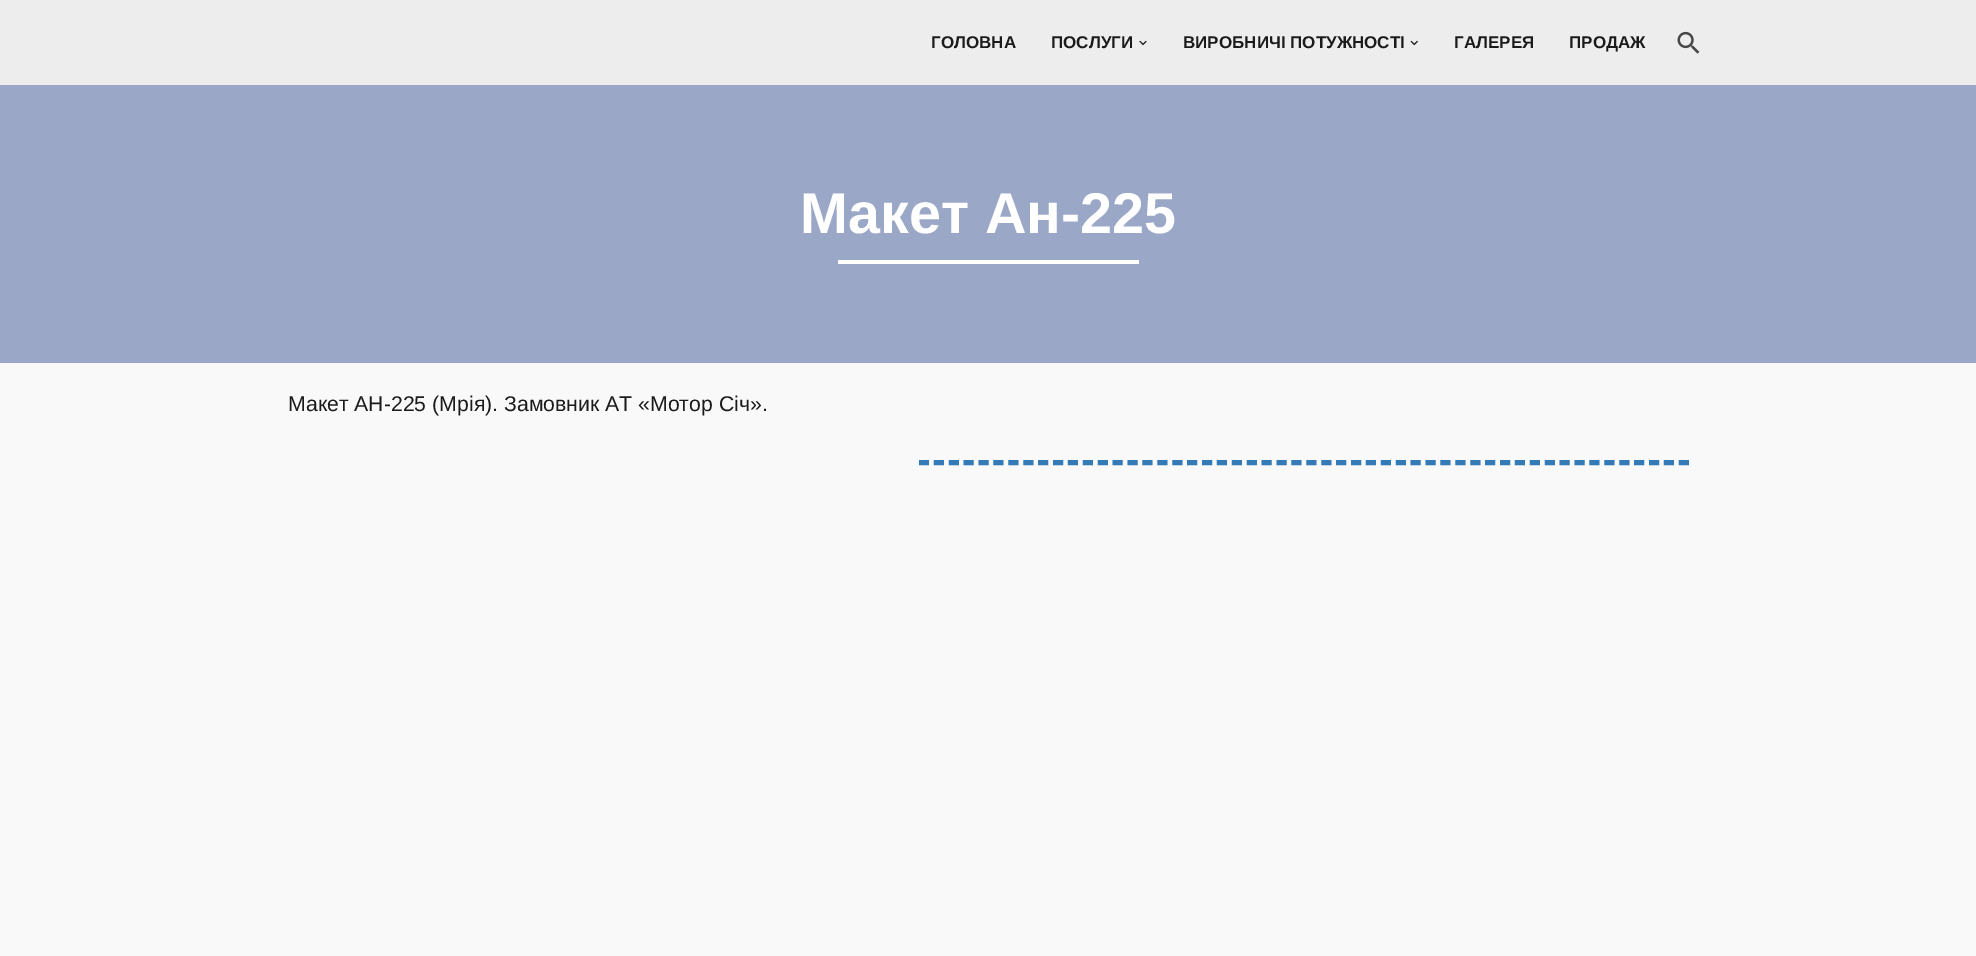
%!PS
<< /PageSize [1976 956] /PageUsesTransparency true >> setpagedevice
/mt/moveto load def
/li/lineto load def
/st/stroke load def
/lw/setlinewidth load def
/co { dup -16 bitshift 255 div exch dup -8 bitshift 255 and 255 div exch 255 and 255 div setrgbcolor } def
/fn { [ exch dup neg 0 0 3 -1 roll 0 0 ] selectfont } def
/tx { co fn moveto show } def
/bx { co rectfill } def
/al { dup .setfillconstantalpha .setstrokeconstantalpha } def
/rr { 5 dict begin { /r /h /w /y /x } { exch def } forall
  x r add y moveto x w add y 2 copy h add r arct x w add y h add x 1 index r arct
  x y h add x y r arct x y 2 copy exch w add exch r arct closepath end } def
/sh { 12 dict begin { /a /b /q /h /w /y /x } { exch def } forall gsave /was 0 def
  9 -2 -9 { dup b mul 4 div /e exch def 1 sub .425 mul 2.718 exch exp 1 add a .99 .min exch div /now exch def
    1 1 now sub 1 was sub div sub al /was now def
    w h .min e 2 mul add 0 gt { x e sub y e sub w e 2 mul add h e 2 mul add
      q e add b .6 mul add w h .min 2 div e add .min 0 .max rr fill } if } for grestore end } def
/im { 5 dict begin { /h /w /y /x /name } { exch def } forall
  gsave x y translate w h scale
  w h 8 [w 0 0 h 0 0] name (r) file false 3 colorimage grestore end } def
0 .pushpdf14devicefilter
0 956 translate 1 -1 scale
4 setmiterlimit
0 0 1976 956 16#F9F9F9 bx
0 85 1976 278 16#9BA7C6 bx
16#1E2A49 co
0 -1 1976 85 0 2 .1 sh
0 0 1976 85 16#EDEDED bx
(media/1.raw) 1139 40 8 6 im
(media/2.raw) 1410 40 8 6 im
(media/3.raw) 1677 31 23 23 im
838 260 301 4 16#FFFFFF bx
16#337AB7 co
5 lw
[10 4.9] 0 setdash
919 462.5 mt 1689 462.5 li st
(ГОЛОВНА) 931 48 /LiberationSans-Bold 17 16#1B1B1B tx
(ПОСЛУГИ) 1051 48 /LiberationSans-Bold 17 16#1B1B1B tx
(ВИРОБНИЧІ ПОТУЖНОСТІ) 1183 48 /LiberationSans-Bold 17 16#1B1B1B tx
(ГАЛЕРЕЯ) 1454 48 /LiberationSans-Bold 17 16#1B1B1B tx
(ПРОДАЖ) 1569 48 /LiberationSans-Bold 17 16#1B1B1B tx
(Макет Ан-225) 800 233 /LiberationSans-Bold 57.5 16#FFFFFF tx
(Макет АН-225 \(Мрія\). Замовник АТ «Мотор Січ».) 288 411 /LiberationSans-Regular 21.25 16#1B1B1B tx
.poppdf14devicefilter showpage
